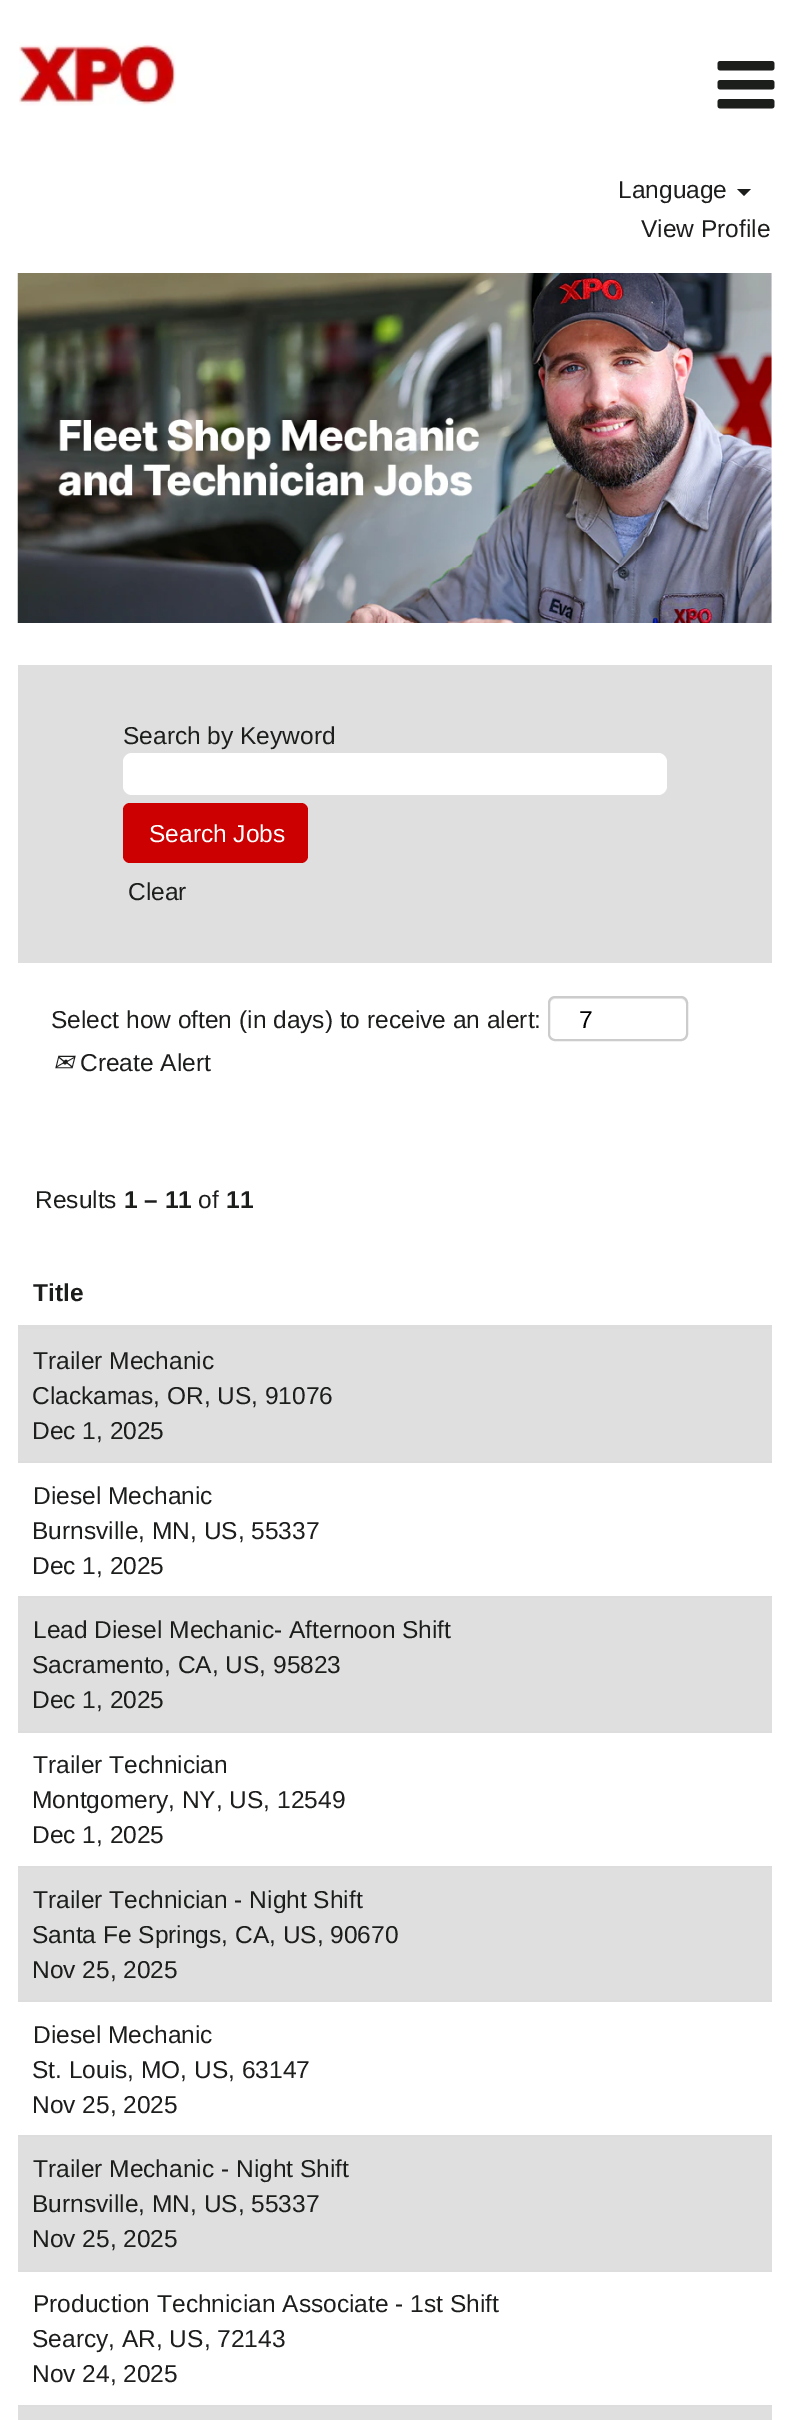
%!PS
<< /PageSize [788 2420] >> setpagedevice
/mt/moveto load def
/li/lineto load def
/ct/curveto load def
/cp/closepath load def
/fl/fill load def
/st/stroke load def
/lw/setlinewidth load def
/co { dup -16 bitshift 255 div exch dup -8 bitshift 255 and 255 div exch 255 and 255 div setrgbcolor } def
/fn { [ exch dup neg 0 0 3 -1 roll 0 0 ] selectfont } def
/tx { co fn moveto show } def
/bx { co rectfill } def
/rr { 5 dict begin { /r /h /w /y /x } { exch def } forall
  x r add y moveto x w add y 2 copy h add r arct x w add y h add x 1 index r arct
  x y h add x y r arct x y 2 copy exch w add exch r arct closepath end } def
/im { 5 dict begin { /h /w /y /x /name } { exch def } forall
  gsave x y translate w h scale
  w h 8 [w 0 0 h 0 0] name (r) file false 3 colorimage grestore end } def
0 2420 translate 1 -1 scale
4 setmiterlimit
0 0 788 2420 16#FFFFFF bx
(media/1.raw) 19 43 157 63 im
(media/2.raw) 717 61 58 48 im
16#1C1E1C co
737 189 mt 751 189 li 744 196 li cp fl
(media/3.raw) 17 273 755 350 im
18 665 754 298 16#DFDFDF bx
16#FFFFFF co
123 753 544 42 9 rr fl
16#CC0000 co
123 803 185 60 7 rr fl
16#ECECEC co
555 999 mt 681 999 li 684 999 686 1002 686 1004 ct 686 1003 li 686 1000 684 998 681 998 ct 555 998 li 552 998 550 1000 550 1003 ct 550 1004 li 550 1002 552 999 555 999 ct cp fl
16#CCCCCC co
2 lw
549 997 138 43 6 rr st
18 1325 754 4 16#DDDDDD bx
18 1329 754 132 16#DFDFDF bx
18 1461 754 2 16#DDDDDD bx
18 1598 754 133 16#DFDFDF bx
18 1596 754 2 16#DDDDDD bx
18 1731 754 2 16#DDDDDD bx
18 1868 754 132 16#DFDFDF bx
18 1866 754 2 16#DDDDDD bx
18 2000 754 2 16#DDDDDD bx
18 2137 754 133 16#DFDFDF bx
18 2135 754 2 16#DDDDDD bx
18 2270 754 2 16#DDDDDD bx
18 2407 754 13 16#DFDFDF bx
18 2405 754 2 16#DDDDDD bx
(Language) 618 198 /LiberationSans-Regular 24.5 16#1C1E1C tx
(View Profile) 641 237 /LiberationSans-Regular 24.5 16#1C1E1C tx
(Search by Keyword) 123 744 /LiberationSans-Regular 24.5 16#1C1E1C tx
(Search Jobs) 149 842 /LiberationSans-Regular 24.5 16#FFFFFF tx
(Clear) 128 900 /LiberationSans-Regular 24.5 16#1C1E1C tx
(Select how often \(in days\) to receive an alert:) 51 1028 /LiberationSans-Regular 24.5 16#1C1E1C tx
(7) 579 1028 /LiberationSans-Regular 24.5 16#000000 tx
(✉) 53 1071 /DejaVuSans-Italic 24.5 16#1C1E1C tx
(Create Alert) 80 1071 /LiberationSans-Regular 24.5 16#1C1E1C tx
(Results) 35 1208 /LiberationSans-Regular 24.5 16#1C1E1C tx
(1 – 11) 124 1208 /LiberationSans-Bold 24.5 16#1C1E1C tx
(of) 198 1208 /LiberationSans-Regular 24.5 16#1C1E1C tx
(11) 226 1208 /LiberationSans-Bold 24.5 16#1C1E1C tx
(Title) 33 1301 /LiberationSans-Bold 24.5 16#1C1E1C tx
(Trailer Mechanic) 33 1369 /LiberationSans-Regular 24.5 16#1C1E1C tx
(Clackamas, OR, US, 91076) 32 1404 /LiberationSans-Regular 24.5 16#1C1E1C tx
(Dec 1, 2025) 32 1439 /LiberationSans-Regular 24.5 16#1C1E1C tx
(Diesel Mechanic) 33 1504 /LiberationSans-Regular 24.5 16#1C1E1C tx
(Burnsville, MN, US, 55337) 32 1539 /LiberationSans-Regular 24.5 16#1C1E1C tx
(Dec 1, 2025) 32 1574 /LiberationSans-Regular 24.5 16#1C1E1C tx
(Lead Diesel Mechanic- Afternoon Shift) 33 1638 /LiberationSans-Regular 24.5 16#1C1E1C tx
(Sacramento, CA, US, 95823) 32 1673 /LiberationSans-Regular 24.5 16#1C1E1C tx
(Dec 1, 2025) 32 1708 /LiberationSans-Regular 24.5 16#1C1E1C tx
(Trailer Technician) 33 1773 /LiberationSans-Regular 24.5 16#1C1E1C tx
(Montgomery, NY, US, 12549) 32 1808 /LiberationSans-Regular 24.5 16#1C1E1C tx
(Dec 1, 2025) 32 1843 /LiberationSans-Regular 24.5 16#1C1E1C tx
(Trailer Technician - Night Shift) 33 1908 /LiberationSans-Regular 24.5 16#1C1E1C tx
(Santa Fe Springs, CA, US, 90670) 32 1943 /LiberationSans-Regular 24.5 16#1C1E1C tx
(Nov 25, 2025) 32 1978 /LiberationSans-Regular 24.5 16#1C1E1C tx
(Diesel Mechanic) 33 2043 /LiberationSans-Regular 24.5 16#1C1E1C tx
(St. Louis, MO, US, 63147) 32 2078 /LiberationSans-Regular 24.5 16#1C1E1C tx
(Nov 25, 2025) 32 2113 /LiberationSans-Regular 24.5 16#1C1E1C tx
(Trailer Mechanic - Night Shift) 33 2177 /LiberationSans-Regular 24.5 16#1C1E1C tx
(Burnsville, MN, US, 55337) 32 2212 /LiberationSans-Regular 24.5 16#1C1E1C tx
(Nov 25, 2025) 32 2247 /LiberationSans-Regular 24.5 16#1C1E1C tx
(Production Technician Associate - 1st Shift) 33 2312 /LiberationSans-Regular 24.5 16#1C1E1C tx
(Searcy, AR, US, 72143) 32 2347 /LiberationSans-Regular 24.5 16#1C1E1C tx
(Nov 24, 2025) 32 2382 /LiberationSans-Regular 24.5 16#1C1E1C tx
showpage
